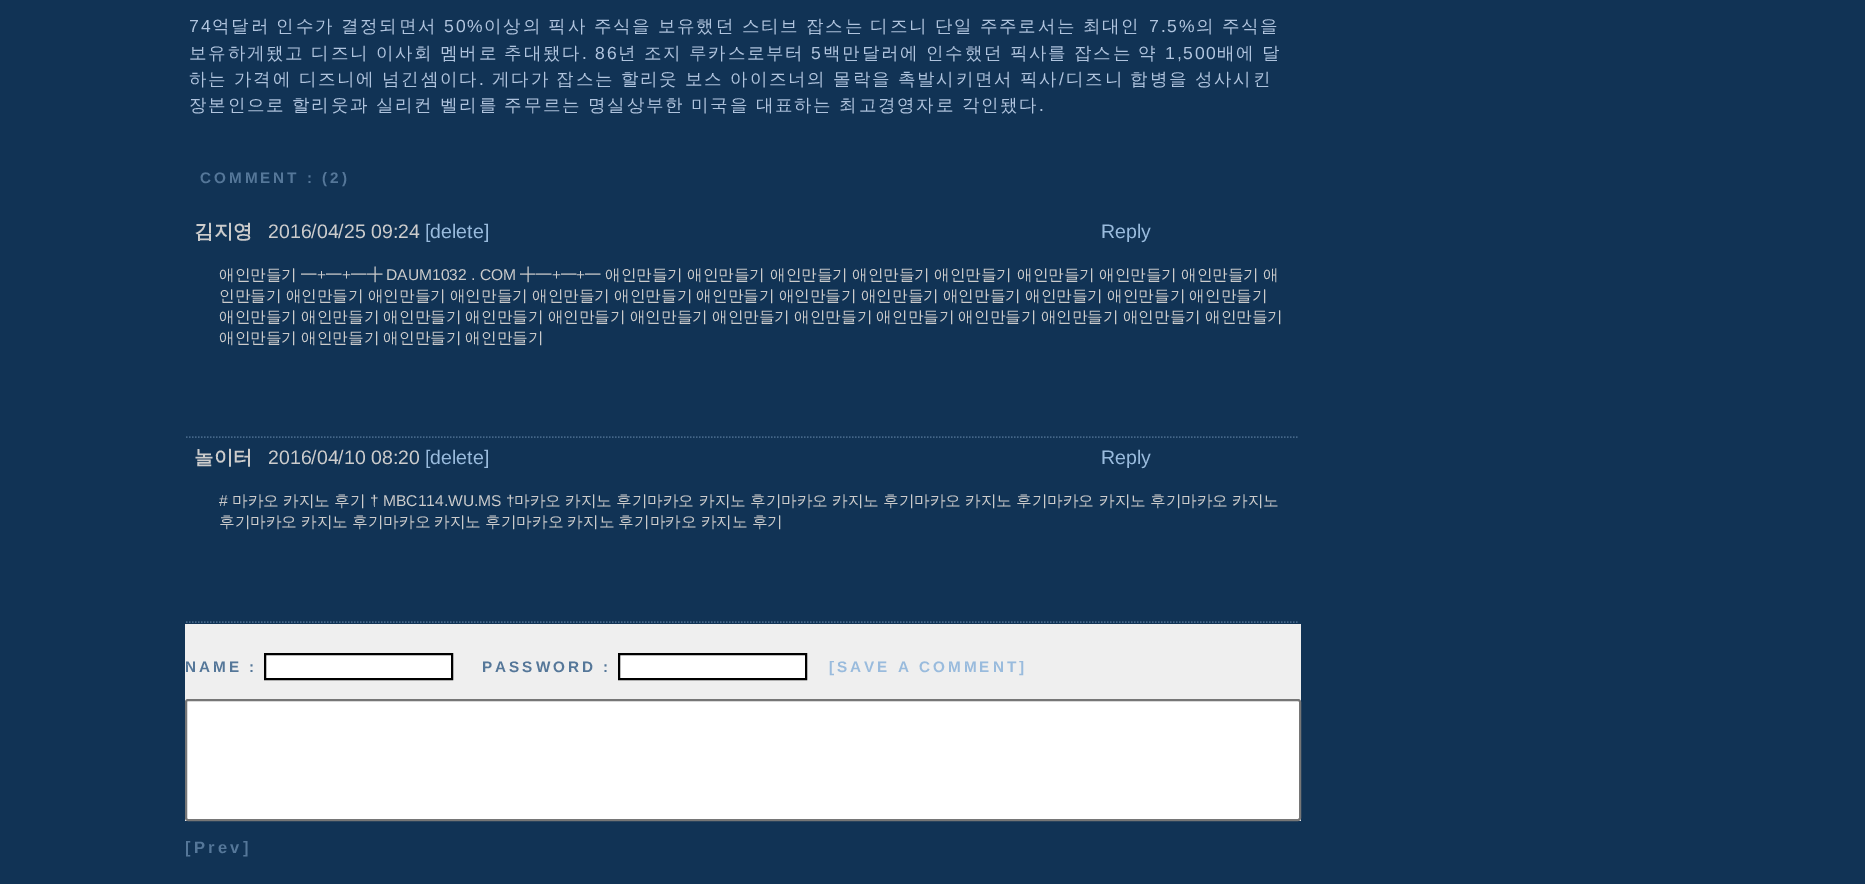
%!PS
<< /PageSize [1865 884] >> setpagedevice
/mt/moveto load def
/li/lineto load def
/cp/closepath load def
/fl/fill load def
/st/stroke load def
/gs/gsave load def
/gr/grestore load def
/lw/setlinewidth load def
/co { dup -16 bitshift 255 div exch dup -8 bitshift 255 and 255 div exch 255 and 255 div setrgbcolor } def
/fn { [ exch dup neg 0 0 3 -1 roll 0 0 ] selectfont } def
/tx { co fn moveto show } def
/bx { co rectfill } def
/rr { 5 dict begin { /r /h /w /y /x } { exch def } forall
  x r add y moveto x w add y 2 copy h add r arct x w add y h add x 1 index r arct
  x y h add x y r arct x y 2 copy exch w add exch r arct closepath end } def
0 884 translate 1 -1 scale
4 setmiterlimit
0 0 1865 884 16#113355 bx
16#446688 co
1.5 lw
[1.5 1.5] 0 setdash
186 437 mt 1299 437 li st
186 622 mt 1299 622 li st
185 624 1116 197 16#EFEFEF bx
16#FFFFFF co
265 654 mt 452 654 li 452 679 li 265 679 li cp gs fl gr
16#000000 co
2 lw
[] 0 setdash
st
16#FFFFFF co
619 654 mt 806 654 li 806 679 li 619 679 li cp gs fl gr
16#000000 co
st
16#FFFFFF co
186 700 1114 120 2 rr gs fl gr
16#767676 co
st
/LiberationSans-Regular 17.55 fn
16#B0C4DE co
189 32 mt 1.75 0 (74) ashow
/WenQuanYiZenHei-Medium 17.55 fn
212 32 mt -.5 0 32 1.75 0 (억달러 인수가 결정되면서) awidthshow
/LiberationSans-Regular 17.55 fn
444 32 mt 1.75 0 (50%) ashow
/WenQuanYiZenHei-Medium 17.55 fn
484 32 mt -.5 0 32 1.75 0 (이상의 픽사 주식을 보유했던 스티브 잡스는 디즈니 단일 주주로서는 최대인) awidthshow
/LiberationSans-Regular 17.55 fn
1149 32 mt 1.75 0 (7.5%) ashow
/WenQuanYiZenHei-Medium 17.55 fn
1196 32 mt -.5 0 32 1.75 0 (의 주식을) awidthshow
189 59 mt -.5 0 32 1.75 0 (보유하게됐고 디즈니 이사회 멤버로 추대됐다) awidthshow
/LiberationSans-Regular 17.55 fn
582 59 mt 1.75 0 (.) ashow
595 59 mt 1.75 0 (86) ashow
/WenQuanYiZenHei-Medium 17.55 fn
618 59 mt -.5 0 32 1.75 0 (년 조지 루카스로부터) awidthshow
/LiberationSans-Regular 17.55 fn
811 59 mt 1.75 0 (5) ashow
/WenQuanYiZenHei-Medium 17.55 fn
823 59 mt -.5 0 32 1.75 0 (백만달러에 인수했던 픽사를 잡스는 약) awidthshow
/LiberationSans-Regular 17.55 fn
1165 59 mt 1.75 0 (1,500) ashow
/WenQuanYiZenHei-Medium 17.55 fn
1217 59 mt -.5 0 32 1.75 0 (배에 달) awidthshow
189 85 mt -.5 0 32 1.75 0 (하는 가격에 디즈니에 넘긴셈이다) awidthshow
/LiberationSans-Regular 17.55 fn
479 85 mt 1.75 0 (.) ashow
/WenQuanYiZenHei-Medium 17.55 fn
492 85 mt -.5 0 32 1.75 0 (게다가 잡스는 할리웃 보스 아이즈너의 몰락을 촉발시키면서 픽사) awidthshow
/LiberationSans-Regular 17.55 fn
1059 85 mt 1.75 0 (/) ashow
/WenQuanYiZenHei-Medium 17.55 fn
1066 85 mt -.5 0 32 1.75 0 (디즈니 합병을 성사시킨) awidthshow
189 111 mt -.5 0 32 1.75 0 (장본인으로 할리웃과 실리컨 벨리를 주무르는 명실상부한 미국을 대표하는 최고경영자로 각인됐다) awidthshow
/LiberationSans-Regular 17.55 fn
1039 111 mt 1.75 0 (.) ashow
/LiberationSans-Bold 15.25 fn
16#557799 co
200 183 mt 3 0 (COMMENT : \(2\)) ashow
(김지영) 194 238 /WenQuanYiZenHei-Bold 19.5 16#CCCCCC tx
(2016/04/25 09:24) 268 238 /LiberationSans-Regular 19.5 16#CCCCCC tx
([delete]) 425 238 /LiberationSans-Regular 19.5 16#99BBDD tx
(Reply) 1101 238 /LiberationSans-Regular 19.5 16#99BBDD tx
(애인만들기) 219 280 /WenQuanYiZenHei-Medium 15.6 16#CCCCCC tx
(━) 301 280 /WenQuanYiZenHei-Medium 15.6 16#CCCCCC tx
(+) 317 280 /LiberationSans-Regular 15.6 16#CCCCCC tx
(━) 326 280 /WenQuanYiZenHei-Medium 15.6 16#CCCCCC tx
(+) 342 280 /LiberationSans-Regular 15.6 16#CCCCCC tx
(━╋) 351 280 /WenQuanYiZenHei-Medium 15.6 16#CCCCCC tx
(DAUM1032 . COM) 386 280 /LiberationSans-Regular 15.6 16#CCCCCC tx
(╋━) 520 280 /WenQuanYiZenHei-Medium 15.6 16#CCCCCC tx
(+) 552 280 /LiberationSans-Regular 15.6 16#CCCCCC tx
(━) 561 280 /WenQuanYiZenHei-Medium 15.6 16#CCCCCC tx
(+) 576 280 /LiberationSans-Regular 15.6 16#CCCCCC tx
(━) 585 280 /WenQuanYiZenHei-Medium 15.6 16#CCCCCC tx
(애인만들기) 605 280 /WenQuanYiZenHei-Medium 15.6 16#CCCCCC tx
(애인만들기) 687 280 /WenQuanYiZenHei-Medium 15.6 16#CCCCCC tx
(애인만들기) 770 280 /WenQuanYiZenHei-Medium 15.6 16#CCCCCC tx
(애인만들기) 852 280 /WenQuanYiZenHei-Medium 15.6 16#CCCCCC tx
(애인만들기) 934 280 /WenQuanYiZenHei-Medium 15.6 16#CCCCCC tx
(애인만들기) 1017 280 /WenQuanYiZenHei-Medium 15.6 16#CCCCCC tx
(애인만들기) 1099 280 /WenQuanYiZenHei-Medium 15.6 16#CCCCCC tx
(애인만들기) 1181 280 /WenQuanYiZenHei-Medium 15.6 16#CCCCCC tx
(애) 1263 280 /WenQuanYiZenHei-Medium 15.6 16#CCCCCC tx
219 301 mt -.5 0 32 (인만들기 애인만들기 애인만들기 애인만들기 애인만들기 애인만들기 애인만들기 애인만들기 애인만들기 애인만들기 애인만들기 애인만들기 애인만들기) widthshow
219 322 mt -.5 0 32 (애인만들기 애인만들기 애인만들기 애인만들기 애인만들기 애인만들기 애인만들기 애인만들기 애인만들기 애인만들기 애인만들기 애인만들기 애인만들기) widthshow
219 343 mt -.5 0 32 (애인만들기 애인만들기 애인만들기 애인만들기) widthshow
(놀이터) 194 464 /WenQuanYiZenHei-Bold 19.5 16#CCCCCC tx
(2016/04/10 08:20) 268 464 /LiberationSans-Regular 19.5 16#CCCCCC tx
([delete]) 425 464 /LiberationSans-Regular 19.5 16#99BBDD tx
(Reply) 1101 464 /LiberationSans-Regular 19.5 16#99BBDD tx
(#) 219 506 /LiberationSans-Regular 15.6 16#CCCCCC tx
(마카오) 232 506 /WenQuanYiZenHei-Medium 15.6 16#CCCCCC tx
(카지노) 283 506 /WenQuanYiZenHei-Medium 15.6 16#CCCCCC tx
(후기) 334 506 /WenQuanYiZenHei-Medium 15.6 16#CCCCCC tx
(† MBC114.WU.MS †) 370 506 /LiberationSans-Regular 15.6 16#CCCCCC tx
(마카오) 514 506 /WenQuanYiZenHei-Medium 15.6 16#CCCCCC tx
(카지노) 565 506 /WenQuanYiZenHei-Medium 15.6 16#CCCCCC tx
(후기마카오) 616 506 /WenQuanYiZenHei-Medium 15.6 16#CCCCCC tx
(카지노) 699 506 /WenQuanYiZenHei-Medium 15.6 16#CCCCCC tx
(후기마카오) 750 506 /WenQuanYiZenHei-Medium 15.6 16#CCCCCC tx
(카지노) 832 506 /WenQuanYiZenHei-Medium 15.6 16#CCCCCC tx
(후기마카오) 883 506 /WenQuanYiZenHei-Medium 15.6 16#CCCCCC tx
(카지노) 965 506 /WenQuanYiZenHei-Medium 15.6 16#CCCCCC tx
(후기마카오) 1016 506 /WenQuanYiZenHei-Medium 15.6 16#CCCCCC tx
(카지노) 1099 506 /WenQuanYiZenHei-Medium 15.6 16#CCCCCC tx
(후기마카오) 1150 506 /WenQuanYiZenHei-Medium 15.6 16#CCCCCC tx
(카지노) 1232 506 /WenQuanYiZenHei-Medium 15.6 16#CCCCCC tx
219 527 mt -.5 0 32 (후기마카오 카지노 후기마카오 카지노 후기마카오 카지노 후기마카오 카지노 후기) widthshow
/LiberationSans-Bold 15.25 fn
16#557799 co
185 672 mt 3 0 (NAME :) ashow
482 672 mt 3 0 (PASSWORD :) ashow
16#99BBDD co
829 672 mt 3 0 ([SAVE A COMMENT]) ashow
/LiberationSans-Bold 16.5 fn
16#557799 co
185 853 mt 3.25 0 ([Prev]) ashow
showpage
